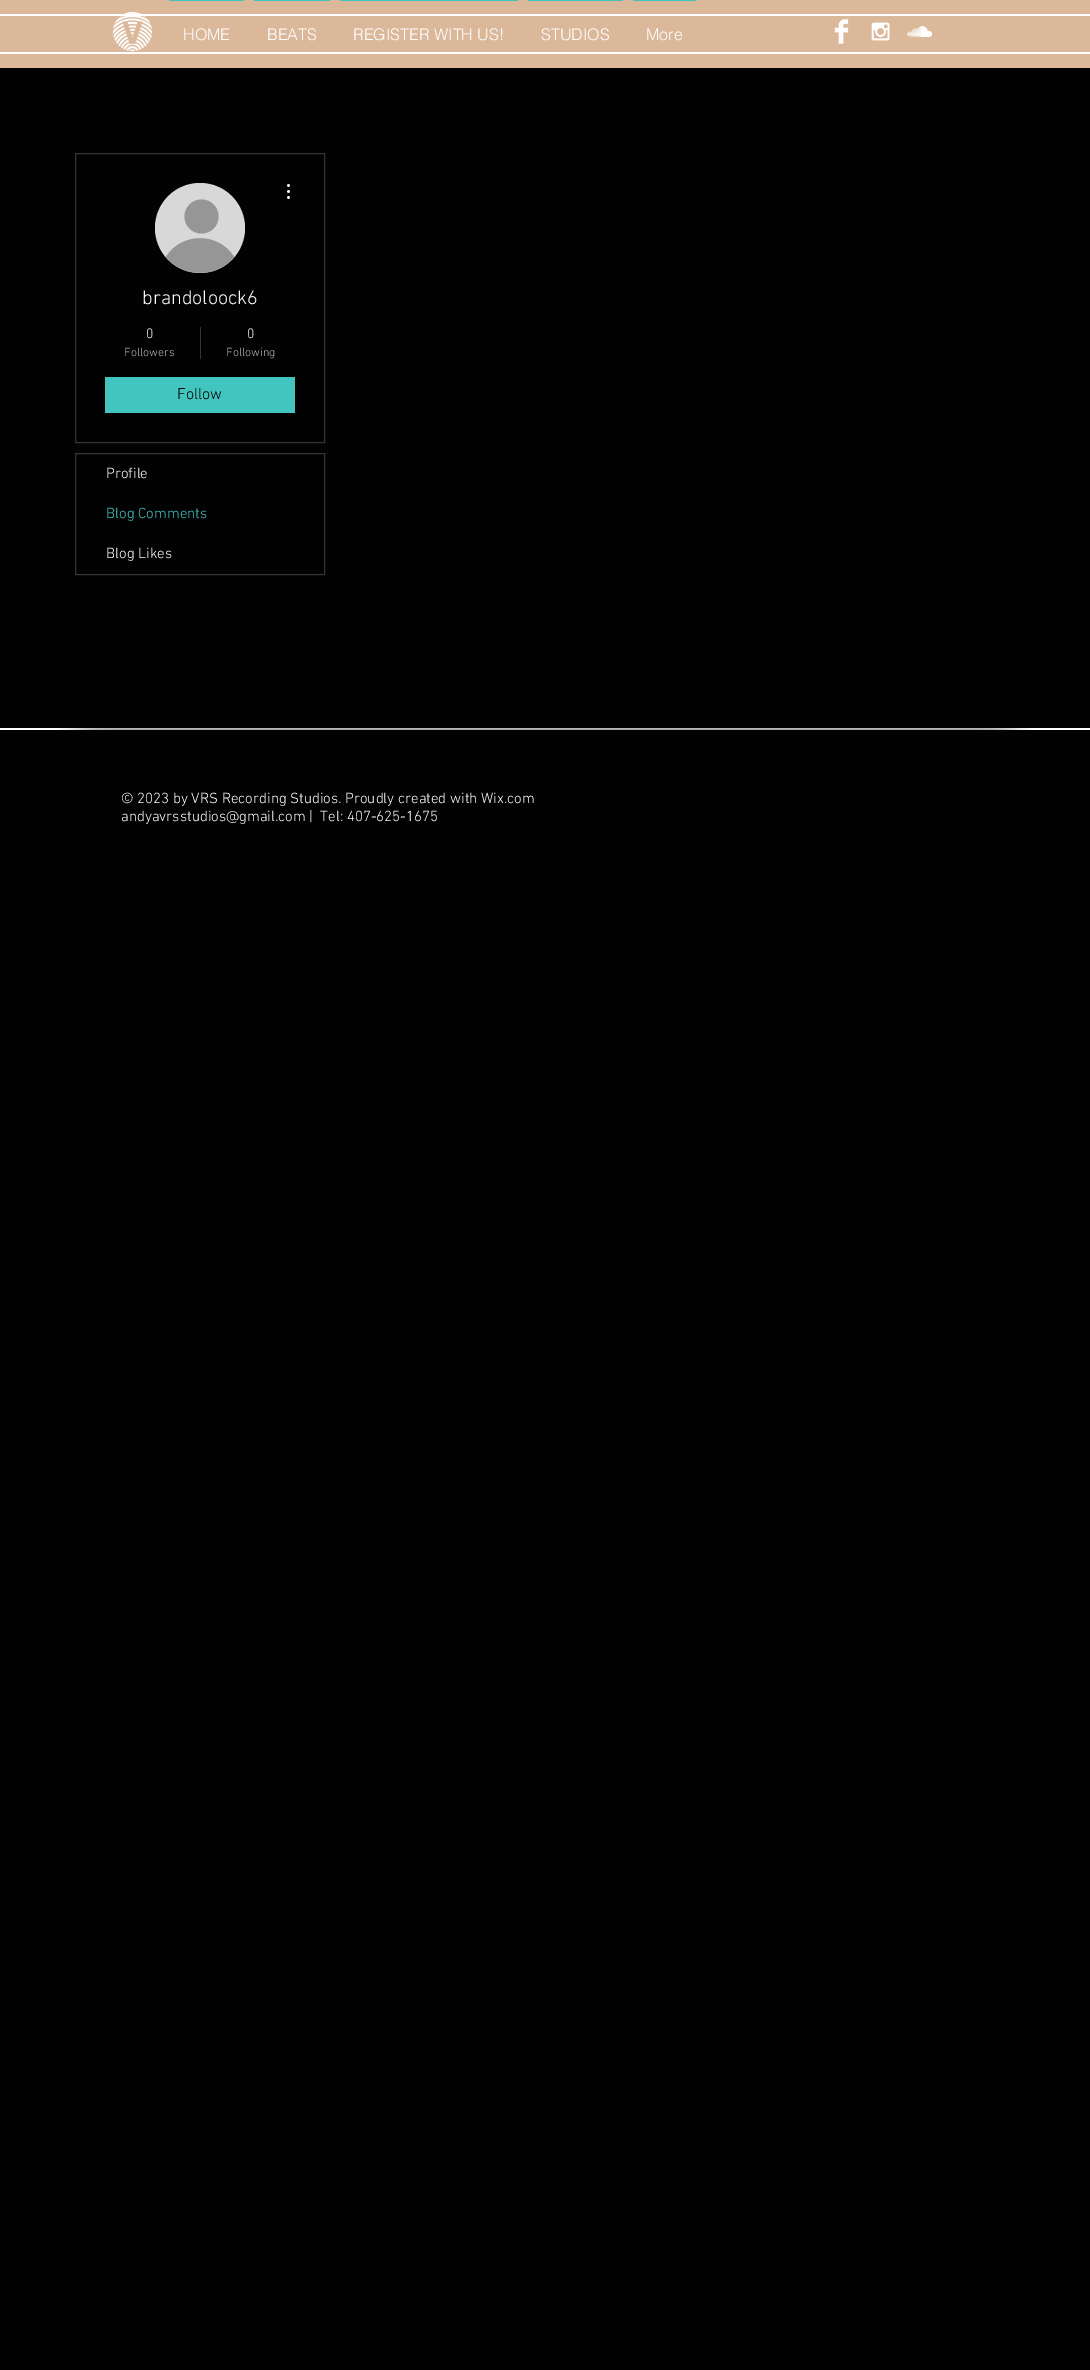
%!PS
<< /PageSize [1090 2370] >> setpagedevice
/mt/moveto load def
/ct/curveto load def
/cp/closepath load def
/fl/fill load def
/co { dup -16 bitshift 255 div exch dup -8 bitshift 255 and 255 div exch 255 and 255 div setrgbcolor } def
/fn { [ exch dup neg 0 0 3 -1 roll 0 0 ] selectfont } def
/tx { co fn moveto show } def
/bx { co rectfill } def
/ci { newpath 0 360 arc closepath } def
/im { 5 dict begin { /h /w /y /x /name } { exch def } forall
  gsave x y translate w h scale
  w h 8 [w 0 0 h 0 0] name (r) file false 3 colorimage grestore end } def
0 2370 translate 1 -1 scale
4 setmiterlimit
0 0 1090 2370 16#020202 bx
0 0 1090 68 16#DBB89A bx
0 14 1090 2 16#FFFFFF bx
0 52 1090 2 16#FFFFFF bx
(media/1.raw) 113 12 39 39 im
169 0 75 1 16#42C5BE bx
254 0 76 1 16#42C5BE bx
340 0 178 1 16#42C5BE bx
528 0 95 1 16#42C5BE bx
633 0 63 1 16#42C5BE bx
(media/2.raw) 834 19 15 25 im
(media/3.raw) 871 22 19 19 im
(media/4.raw) 907 26 25 12 im
16#353535 co
75.5 153.5 249 289 rectstroke
16#D8D8D8 co
200 228 45 ci fl
16#969696 co
201.5 216.5 17 ci fl
234 257 mt 216 278 184 278 166 257 ct 181 232 219 232 234 257 ct cp fl
(media/5.raw) 287 184 3 15 im
200 327 1 32 16#353535 bx
105 377 190 36 16#42C5BE bx
16#353535 co
75.5 453.5 249 121 rectstroke
0 728 1090 2 16#FFFFFF bx
(media/6.raw) 58 728 97 2 im
(media/7.raw) 155 728 780 2 im
(media/8.raw) 935 728 97 2 im
(HOME) 183 40 /helvetica-Light 16 16#FFFFFF tx
(BEATS) 267 40 /helvetica-Light 16 16#FFFFFF tx
(REGISTER WITH US!) 353 40 /helvetica-Light 16 16#FFFFFF tx
(STUDIOS) 541 40 /helvetica-Light 16 16#FFFFFF tx
(More) 646 40 /helvetica-Light 16 16#FFFFFF tx
(brandoloock6) 142 304 /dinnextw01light-Light 20 16#FFFFFF tx
(0) 146 338 /dinnextw01light-Light 14 16#FFFFFF tx
(Followers) 124 356 /dinnextw01light-Light 12 16#B3B3B3 tx
(0) 247 338 /dinnextw01light-Light 14 16#FFFFFF tx
(Following) 226 356 /dinnextw01light-Light 12 16#B3B3B3 tx
(Follow) 177 399 /dinnextw01light-Light 16 16#020202 tx
(Profile) 106 478 /dinnextw01light-Light 15 16#FFFFFF tx
(Blog Comments) 106 518 /dinnextw01light-Light 15 16#42C5BE tx
(Blog Likes) 106 558 /dinnextw01light-Light 15 16#FFFFFF tx
(© 2023 by VRS Recording Studios. Proudly created with Wix.com) 121 803 /dinnextw01light-Light 15 16#FFFFFF tx
(andyavrsstudios@gmail.com |  Tel: 407-625-1675) 121 821 /dinnextw01light-Light 15 16#FFFFFF tx
showpage
